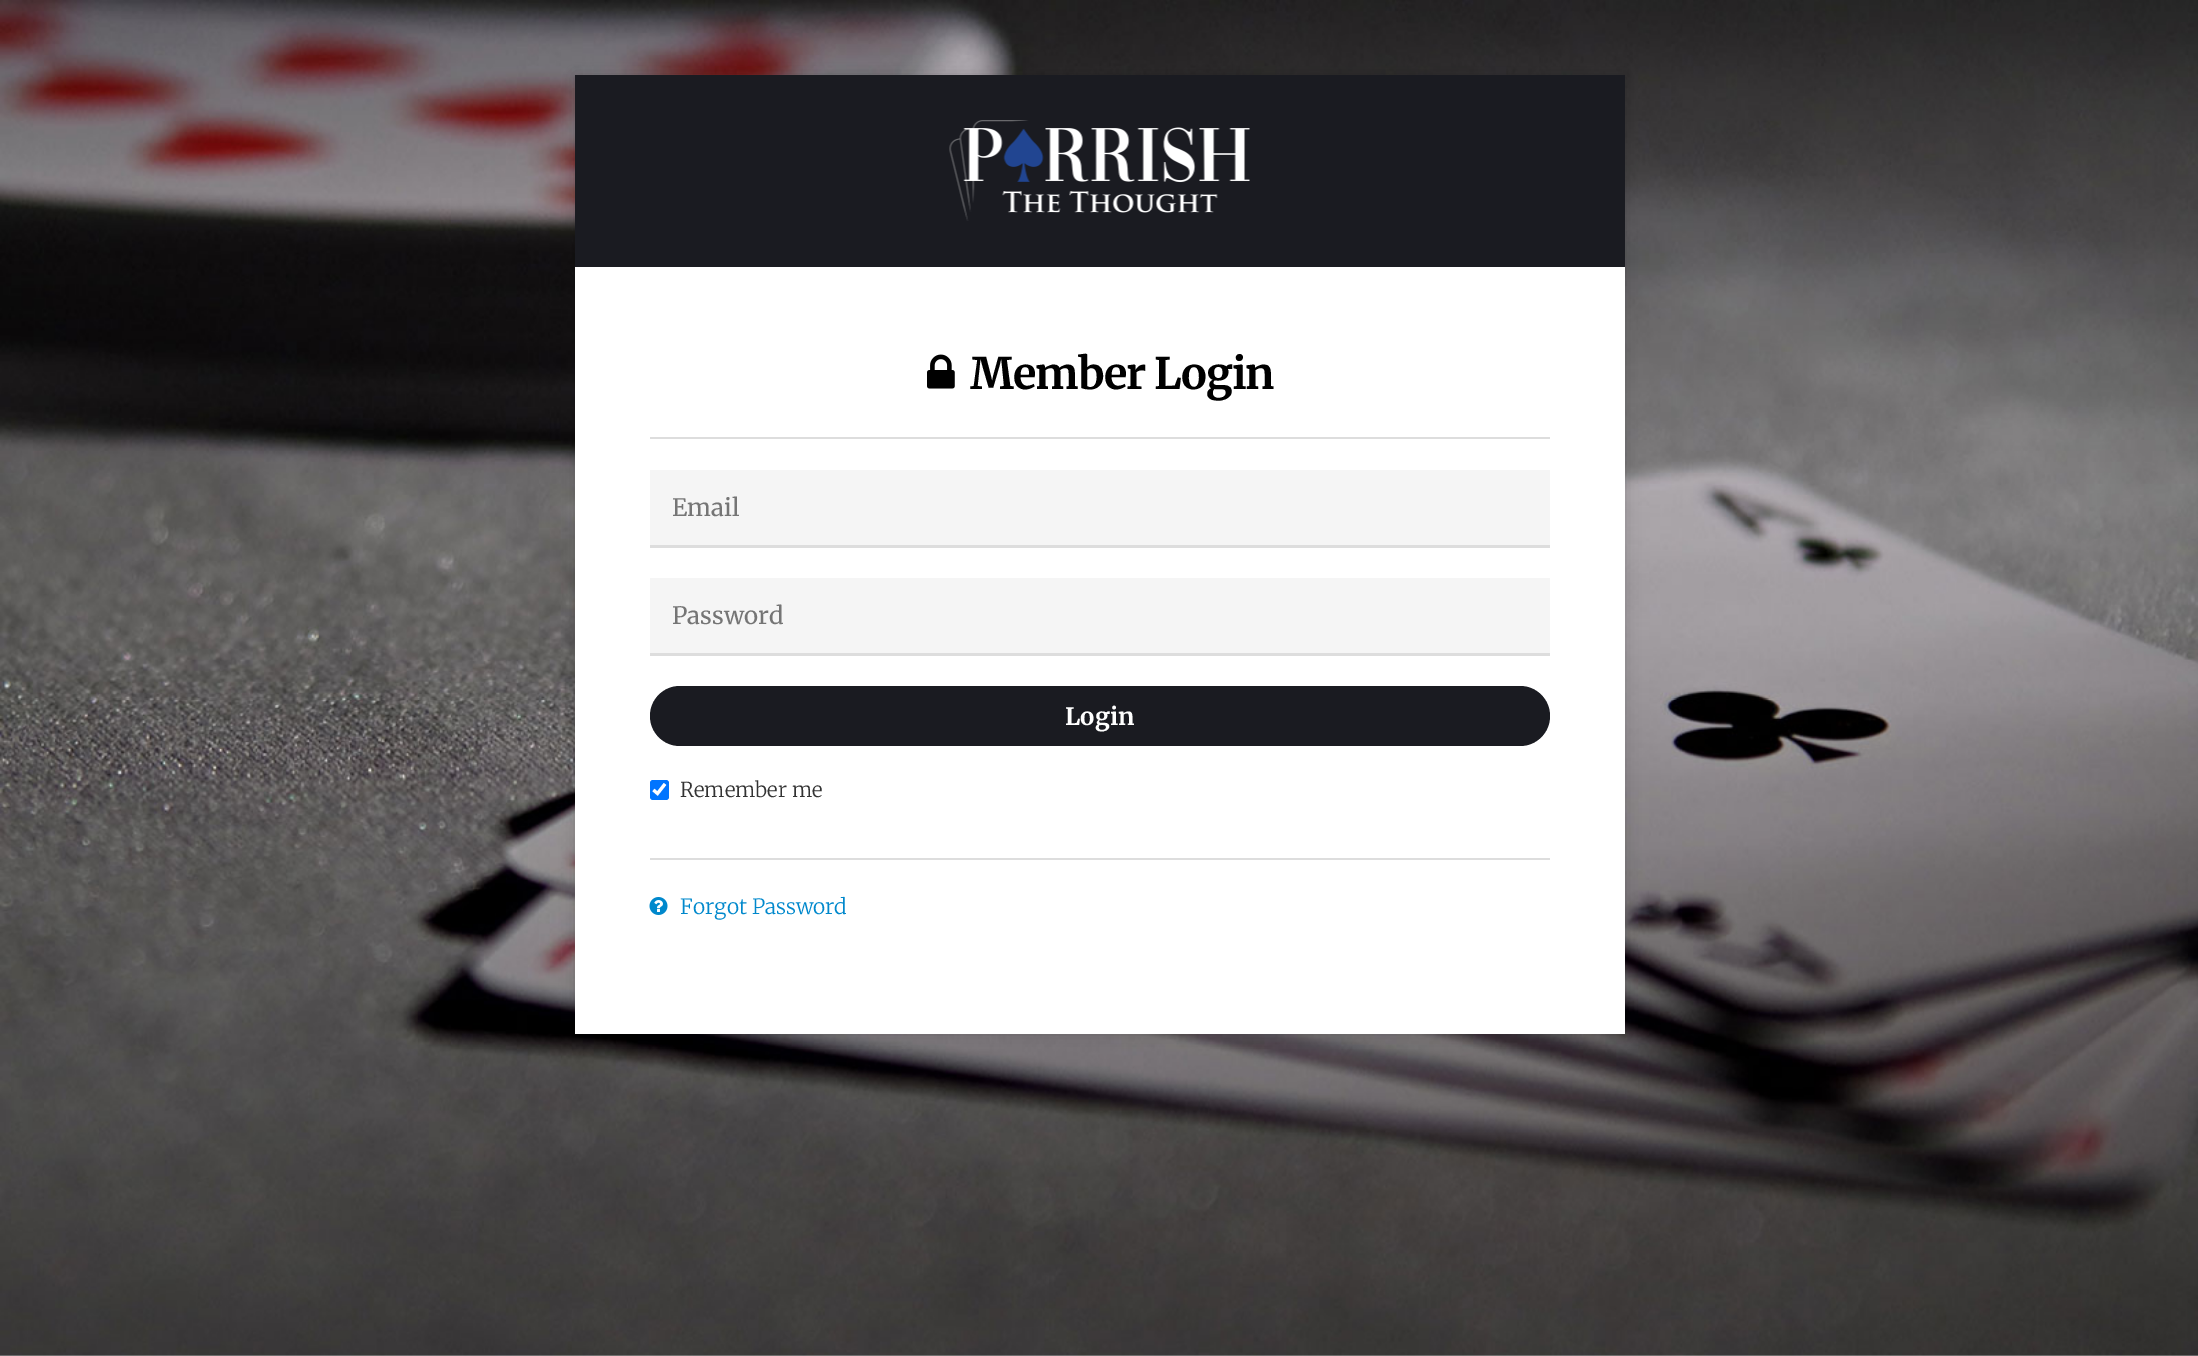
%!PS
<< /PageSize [2198 1356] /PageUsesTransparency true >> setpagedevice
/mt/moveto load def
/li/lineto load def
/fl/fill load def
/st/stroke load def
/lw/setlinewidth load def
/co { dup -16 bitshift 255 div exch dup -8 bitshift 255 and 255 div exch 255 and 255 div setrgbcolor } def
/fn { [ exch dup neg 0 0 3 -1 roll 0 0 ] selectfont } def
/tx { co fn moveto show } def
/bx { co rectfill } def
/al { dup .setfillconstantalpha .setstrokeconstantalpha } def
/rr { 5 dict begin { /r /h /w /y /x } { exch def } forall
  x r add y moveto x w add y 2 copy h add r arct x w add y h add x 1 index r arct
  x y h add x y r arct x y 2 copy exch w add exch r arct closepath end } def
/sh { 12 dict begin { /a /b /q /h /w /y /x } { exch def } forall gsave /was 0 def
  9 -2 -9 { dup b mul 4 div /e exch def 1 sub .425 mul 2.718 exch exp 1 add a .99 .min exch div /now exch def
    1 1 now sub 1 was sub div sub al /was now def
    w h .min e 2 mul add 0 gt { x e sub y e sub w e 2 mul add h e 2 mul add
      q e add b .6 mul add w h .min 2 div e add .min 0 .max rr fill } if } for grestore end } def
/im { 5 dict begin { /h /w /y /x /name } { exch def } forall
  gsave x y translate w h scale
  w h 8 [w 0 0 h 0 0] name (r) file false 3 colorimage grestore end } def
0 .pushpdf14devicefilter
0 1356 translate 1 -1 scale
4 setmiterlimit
0 0 2198 1356 16#FFFFFF bx
(media/1.raw) 0 0 2198 1356 im
16#000000 co
575 75 1050 959 0 7.5 .15 sh
575 267 1050 767 16#FFFFFF bx
575 75 1050 192 16#1A1B21 bx
(media/2.raw) 949 120 301 101 im
(media/3.raw) 927 354 28 35 im
650 437 900 2 16#DDDDDD bx
650 470 900 75 16#F5F5F5 bx
650 545 900 3 16#DDDDDD bx
650 578 900 75 16#F5F5F5 bx
650 653 900 3 16#DDDDDD bx
16#1A1B21 co
650 686 900 60 30 rr fl
16#0075FF co
650 780 19 20 3 rr fl
16#FFFFFF co
3.1 lw
653.5 790 mt 657.5 793.5 li 665 784 li st
650 858 900 2 16#DDDDDD bx
(media/4.raw) 649 897 19 18 im
/Merriweather-Bold 43.25 fn
16#000000 co
970 389 mt -1 0 (Member Login) ashow
(Email) 672 516 /Merriweather-Regular 24 16#757575 tx
(Password) 672 624 /Merriweather-Regular 24 16#757575 tx
(Login) 1065 725 /Merriweather-Bold 24 16#FFFFFF tx
(Remember me) 680 797 /Merriweather-Light 20.5 16#333333 tx
(Forgot Password) 680 914 /Merriweather-Light 21 16#0088CC tx
.poppdf14devicefilter showpage
